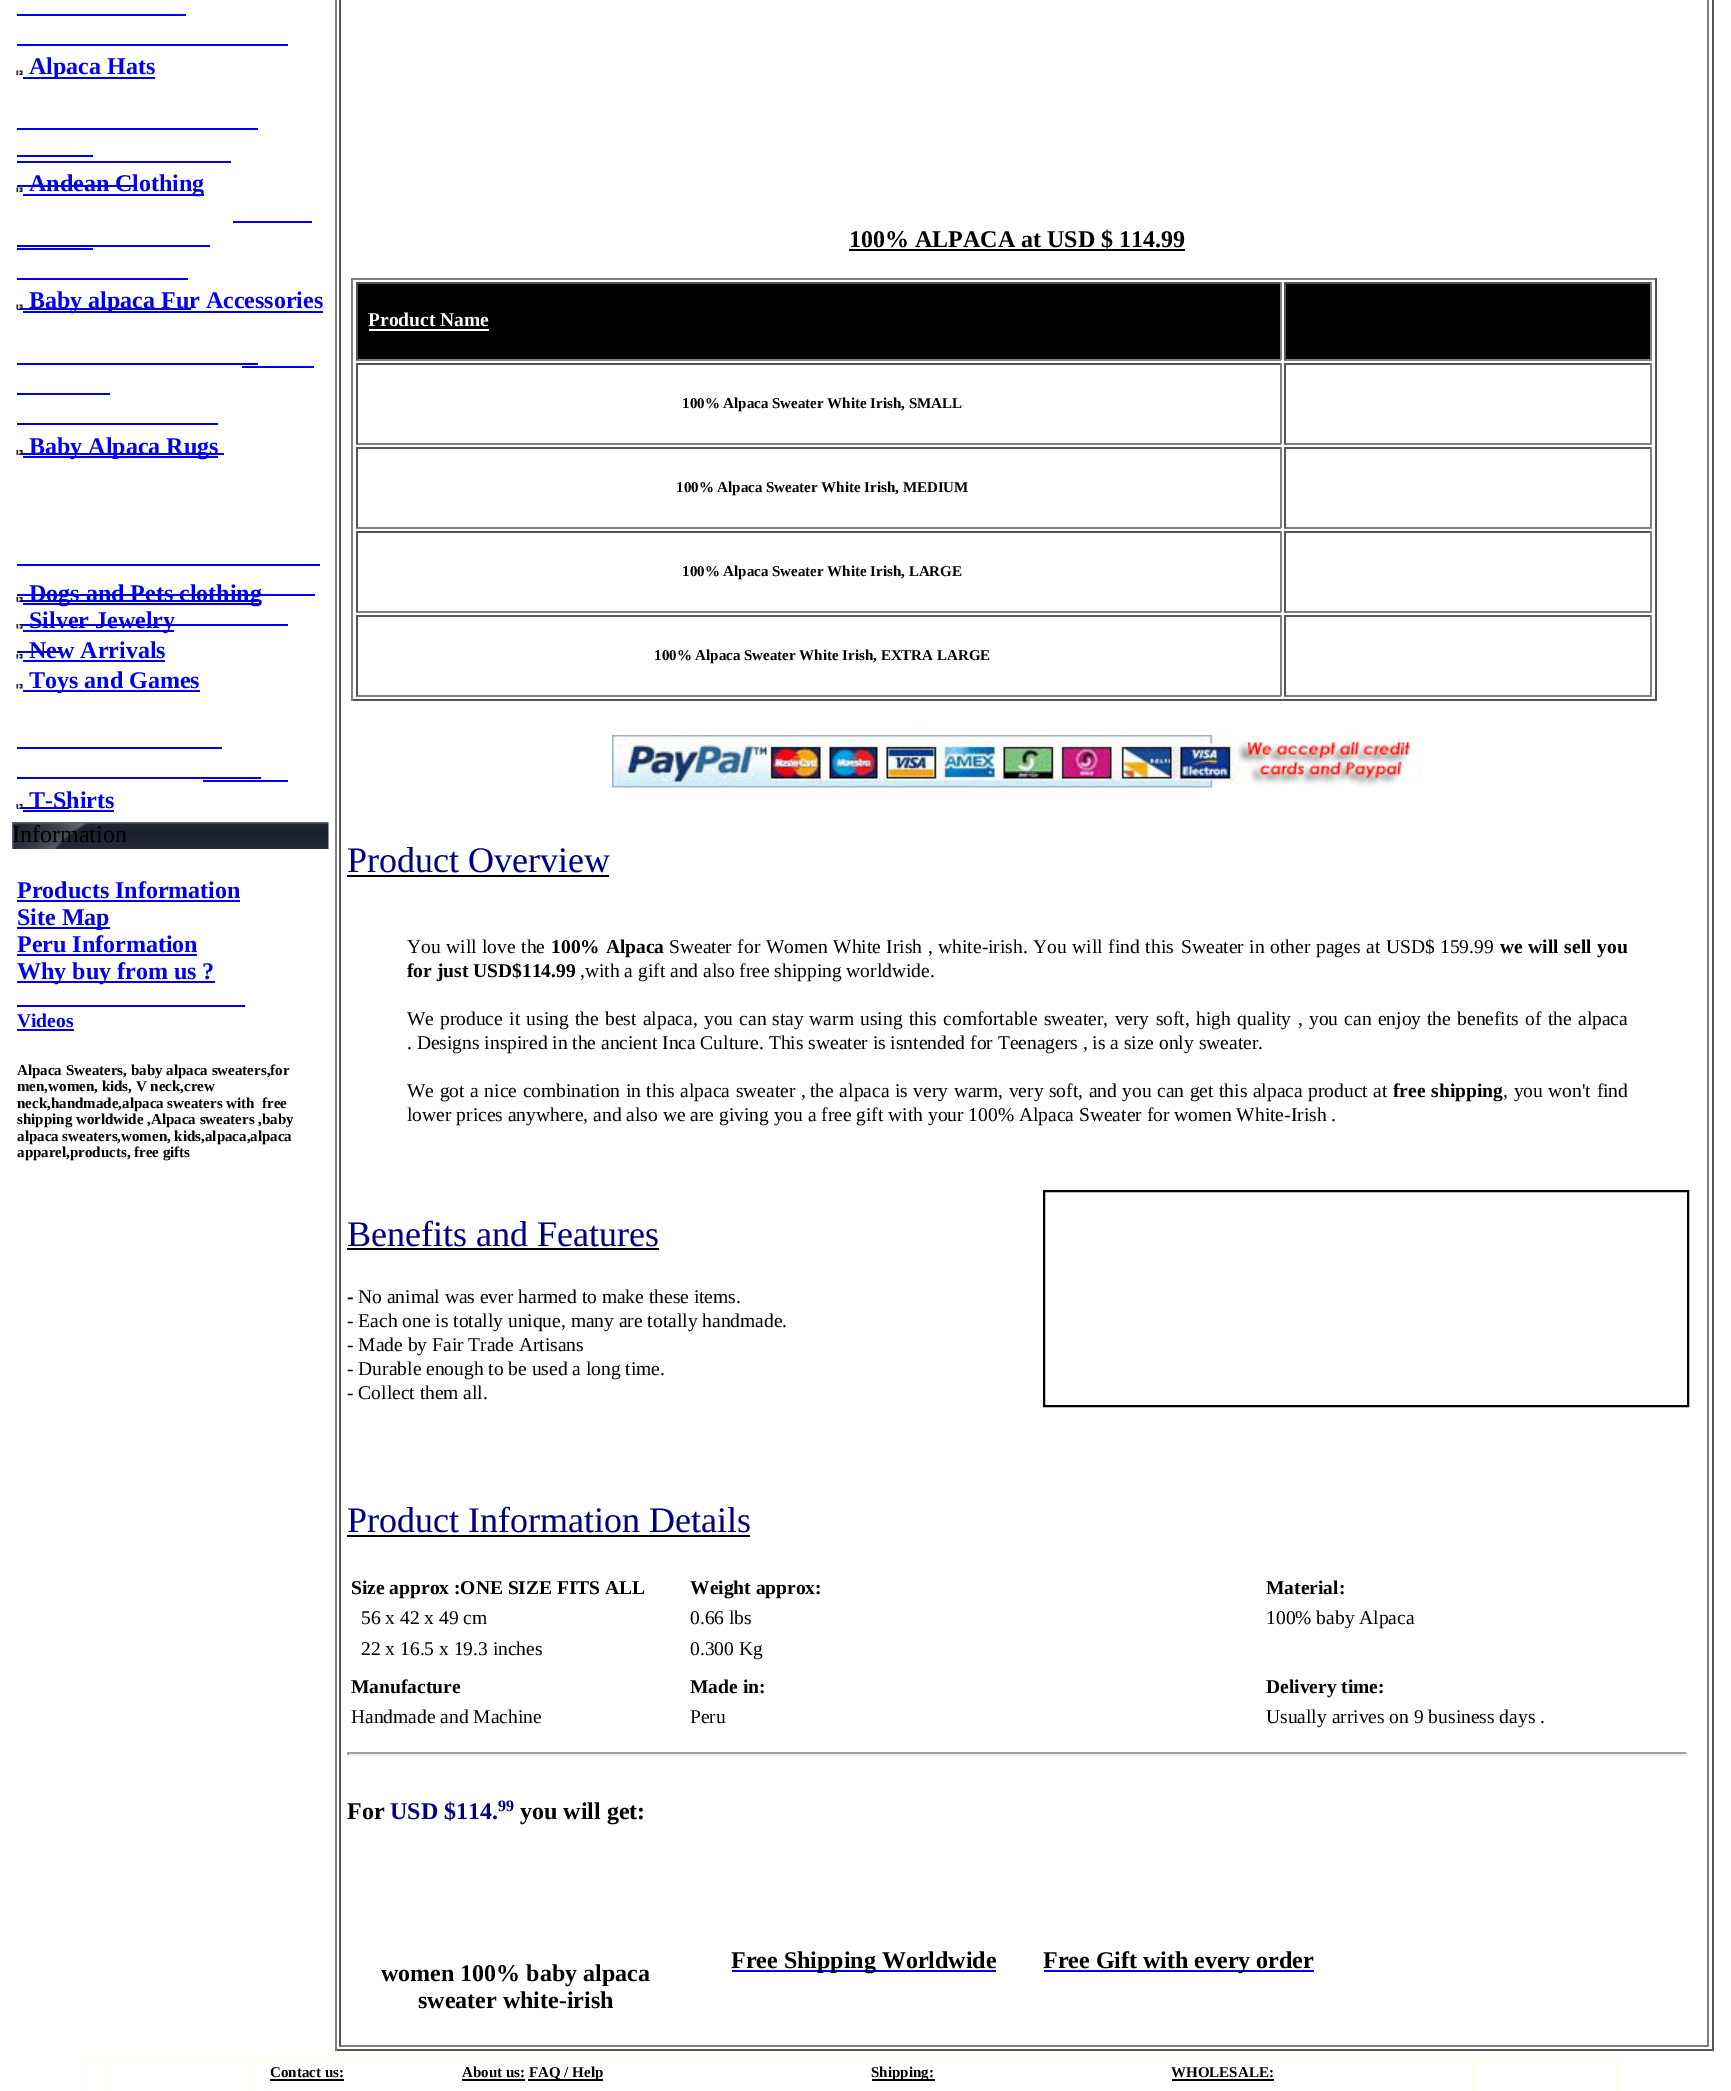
%!PS
<< /PageSize [1731 2091] >> setpagedevice
/mt/moveto load def
/lw/setlinewidth load def
/co { dup -16 bitshift 255 div exch dup -8 bitshift 255 and 255 div exch 255 and 255 div setrgbcolor } def
/fn { [ exch dup neg 0 0 3 -1 roll 0 0 ] selectfont } def
/tx { co fn moveto show } def
/bx { co rectfill } def
/im { 5 dict begin { /h /w /y /x /name } { exch def } forall
  gsave x y translate w h scale
  w h 8 [w 0 0 h 0 0] name (r) file false 3 colorimage grestore end } def
0 2091 translate 1 -1 scale
4 setmiterlimit
0 0 1731 2091 16#FFFFFF bx
17 14 169 2 16#0000EE bx
17 44 271 2 16#0000EE bx
(media/1.raw) 16 70 7 5 im
23 77 132 2 16#0000EE bx
17 128 241 2 16#0000EE bx
17 155 76 2 16#0000EE bx
17 161 214 2 16#0000EE bx
(media/1.raw) 16 187 7 5 im
23 194 181 2 16#0000EE bx
17 185 120 2 16#0000EE bx
233 221 79 2 16#0000EE bx
17 248 76 2 16#0000EE bx
17 245 193 2 16#0000EE bx
17 278 171 2 16#0000EE bx
17 308 174 2 16#0000EE bx
(media/2.raw) 16 304 7 5 im
23 311 300 2 16#0000EE bx
17 363 241 2 16#0000EE bx
242 366 72 2 16#0000EE bx
17 393 93 2 16#0000EE bx
17 423 201 2 16#0000EE bx
17 453 207 2 16#0000EE bx
(media/3.raw) 16 450 7 5 im
23 456 195 2 16#0000EE bx
17 564 303 2 16#0000EE bx
17 600 240 2 16#0000EE bx
(media/3.raw) 16 597 7 5 im
23 603 238 2 16#0000EE bx
17 594 298 2 16#0000EE bx
17 624 271 2 16#0000EE bx
(media/4.raw) 16 624 7 5 im
23 630 151 2 16#0000EE bx
17 651 45 2 16#0000EE bx
(media/5.raw) 16 654 7 5 im
23 660 142 2 16#0000EE bx
(media/5.raw) 16 684 7 5 im
23 690 177 2 16#0000EE bx
17 747 205 2 16#0000EE bx
17 777 244 2 16#0000EE bx
203 780 85 2 16#0000EE bx
17 807 52 2 16#0000EE bx
(media/3.raw) 16 804 7 5 im
23 810 91 2 16#0000EE bx
(media/6.raw) 12 822 317 27 im
17 900 223 2 16#0000EE bx
17 927 93 2 16#0000EE bx
17 954 180 2 16#0000EE bx
17 981 198 2 16#0000EE bx
17 1005 228 2 16#0000EE bx
17 1029 57 2 16#0000EE bx
1712 0 2 2051 16#555555 bx
335 2049 1378 2 16#555555 bx
335 0 2 2051 16#808080 bx
1707 0 2 2046 16#808080 bx
339 2045 1370 2 16#808080 bx
339 0 2 2046 16#555555 bx
849 249 336 2 16#000000 bx
351 278 1305 2 16#808080 bx
1655 278 2 423 16#555555 bx
351 699 1305 2 16#555555 bx
351 278 2 423 16#808080 bx
358 284 922 75 16#000000 bx
356 282 925 2 16#555555 bx
1280 282 2 78 16#808080 bx
356 359 925 2 16#808080 bx
356 282 2 78 16#555555 bx
369 329 120 2 16#FFFFFF bx
1286 284 364 75 16#000000 bx
1284 282 368 2 16#555555 bx
1650 282 2 78 16#808080 bx
1284 359 368 2 16#808080 bx
1284 282 2 78 16#555555 bx
356 363 925 2 16#555555 bx
1280 363 2 81 16#808080 bx
356 443 925 2 16#808080 bx
356 363 2 81 16#555555 bx
1284 363 368 2 16#555555 bx
1650 363 2 81 16#808080 bx
1284 443 368 2 16#808080 bx
1284 363 2 81 16#555555 bx
356 447 925 2 16#555555 bx
1280 447 2 81 16#808080 bx
356 527 925 2 16#808080 bx
356 447 2 81 16#555555 bx
1284 447 368 2 16#555555 bx
1650 447 2 81 16#808080 bx
1284 527 368 2 16#808080 bx
1284 447 2 81 16#555555 bx
356 531 925 2 16#555555 bx
1280 531 2 81 16#808080 bx
356 611 925 2 16#808080 bx
356 531 2 81 16#555555 bx
1284 531 368 2 16#555555 bx
1650 531 2 81 16#808080 bx
1284 611 368 2 16#808080 bx
1284 531 2 81 16#555555 bx
356 615 925 2 16#555555 bx
1280 615 2 81 16#808080 bx
356 695 925 2 16#808080 bx
356 615 2 81 16#555555 bx
1284 615 368 2 16#555555 bx
1650 615 2 81 16#808080 bx
1284 695 368 2 16#808080 bx
1284 615 2 81 16#555555 bx
(media/7.raw) 612 735 810 53 im
347 875 262 2 16#000000 bx
347 1248 312 2 16#000000 bx
2 lw
1044 1191 644 215 rectstroke
347 1535 403 2 16#000000 bx
347 1752 1341 2 16#9F9F9F bx
1686 1752 2 3 16#EEEEEE bx
347 1754 1341 2 16#EEEEEE bx
347 1752 2 3 16#9F9F9F bx
732 1970 264 2 16#0000EE bx
1044 1970 270 2 16#0000EE bx
83 2057 1536 34 16#FFFFF1 bx
86 2060 19 31 16#FFFFFF bx
108 2060 141 31 16#FFFFFF bx
252 2060 11 31 16#FFFFFF bx
266 2060 1206 31 16#FFFFFF bx
270 2079 74 2 16#000000 bx
462 2079 63 2 16#000000 bx
528 2079 75 2 16#000000 bx
872 2079 63 2 16#000000 bx
1172 2079 102 2 16#000000 bx
1475 2060 141 31 16#FFFFFF bx
(Alpaca Hats) 29 74 /LiberationSerif-Bold 24 16#0000EE tx
(Andean Clothing) 29 191 /LiberationSerif-Bold 24 16#0000EE tx
(Baby alpaca Fur Accessories) 29 308 /LiberationSerif-Bold 24 16#0000EE tx
(Baby Alpaca Rugs) 29 454 /LiberationSerif-Bold 24 16#0000EE tx
(Dogs and Pets clothing) 29 601 /LiberationSerif-Bold 24 16#0000EE tx
(Silver Jewelry) 29 628 /LiberationSerif-Bold 24 16#0000EE tx
(New Arrivals) 29 658 /LiberationSerif-Bold 24 16#0000EE tx
(Toys and Games) 29 688 /LiberationSerif-Bold 24 16#0000EE tx
(T-Shirts) 29 808 /LiberationSerif-Bold 24 16#0000EE tx
(Information) 12 842 /LiberationSerif-Regular 24 16#000000 tx
(Products Information) 17 898 /LiberationSerif-Bold 24 16#0000EE tx
(Site Map) 17 925 /LiberationSerif-Bold 24 16#0000EE tx
(Peru Information) 17 952 /LiberationSerif-Bold 24 16#0000EE tx
(Why buy from us ?) 17 979 /LiberationSerif-Bold 24 16#0000EE tx
(Videos) 17 1027 /LiberationSerif-Bold 19.5 16#0000EE tx
(Alpaca Sweaters, baby alpaca sweaters,for) 17 1075 /LiberationSerif-Bold 15 16#000000 tx
(men,women, kids, V neck,crew) 17 1091 /LiberationSerif-Bold 15 16#000000 tx
(neck,handmade,alpaca sweaters with  free) 17 1108 /LiberationSerif-Bold 15 16#000000 tx
(shipping worldwide ,Alpaca sweaters ,baby) 17 1124 /LiberationSerif-Bold 15 16#000000 tx
(alpaca sweaters,women, kids,alpaca,alpaca) 17 1141 /LiberationSerif-Bold 15 16#000000 tx
(apparel,products, free gifts) 17 1157 /LiberationSerif-Bold 15 16#000000 tx
(100% ALPACA at USD $ 114.99) 849 247 /LiberationSerif-Bold 24 16#000000 tx
(Product Name) 368 326 /LiberationSerif-Bold 19.5 16#FFFFFF tx
(100% Alpaca Sweater White Irish, SMALL) 682 408 /LiberationSerif-Bold 15 16#000000 tx
(100% Alpaca Sweater White Irish, MEDIUM) 676 492 /LiberationSerif-Bold 15 16#000000 tx
(100% Alpaca Sweater White Irish, LARGE) 682 576 /LiberationSerif-Bold 15 16#000000 tx
(100% Alpaca Sweater White Irish, EXTRA LARGE) 654 660 /LiberationSerif-Bold 15 16#000000 tx
(Product Overview) 347 872 /LiberationSerif-Regular 36 16#000080 tx
(Y) 407 953 /LiberationSerif-Regular 19.5 16#000000 tx
421 953 mt .75 0 32 (ou will love the) widthshow
/LiberationSerif-Bold 19.5 fn
551 953 mt 1 0 32 (100% Alpaca) widthshow
/LiberationSerif-Regular 19.5 fn
669 953 mt .75 0 32 (Sweater for Women White Irish , white-irish. You will find this) widthshow
1181 953 mt .75 0 32 (Sweater in other pages at USD$ 159.99) widthshow
/LiberationSerif-Bold 19.5 fn
1500 953 mt .75 0 32 (we will sell you) widthshow
(for just USD$114.99) 407 977 /LiberationSerif-Bold 19.5 16#000000 tx
(,with a gift and also free shipping worldwide.) 580 977 /LiberationSerif-Regular 19.5 16#000000 tx
(We) 407 1025 /LiberationSerif-Regular 19.5 16#000000 tx
440 1025 mt 1.5 0 32 (produce it using the) widthshow
605 1025 mt 1.5 0 32 (best alpaca, you can) widthshow
772 1025 mt 1 0 32 (stay warm) widthshow
860 1025 mt 1.5 0 32 (using this comfortable sweater, very soft, high) widthshow
1237 1025 mt 1.5 0 32 (quality , you can enjoy) widthshow
1427 1025 mt 1.5 0 32 (the benefits of the) widthshow
(alpaca) 1578 1025 /LiberationSerif-Regular 19.5 16#000000 tx
(. Designs inspired in the ancient Inca Culture. This sweater is isntended for Teenagers , is a size only sweater.) 407 1049 /LiberationSerif-Regular 19.5 16#000000 tx
407 1097 mt .75 0 32 (We got a nice combination in this alpaca sweater ,) widthshow
810 1097 mt .75 0 32 (the alpaca is very warm, very soft, and) widthshow
1122 1097 mt .75 0 32 (you can get this alpaca product at) widthshow
/LiberationSerif-Bold 19.5 fn
1393 1097 mt 1 0 32 (free shipping) widthshow
/LiberationSerif-Regular 19.5 fn
1503 1097 mt .75 0 32 (, you won't find) widthshow
(lower prices anywhere, and also we are giving you a free gift with your 100% Alpaca Sweater for women White-Irish .) 407 1121 /LiberationSerif-Regular 19.5 16#000000 tx
(Benefits and Features) 347 1246 /LiberationSerif-Regular 36 16#000080 tx
(-) 347 1303 /LiberationSerif-Bold 19.5 16#000000 tx
(No animal was ever harmed to make these items.) 358 1303 /LiberationSerif-Regular 19.5 16#000000 tx
(- Each one is totally unique, many are totally handmade.) 347 1327 /LiberationSerif-Regular 19.5 16#000000 tx
(- Made by Fair Trade Artisans) 347 1351 /LiberationSerif-Regular 19.5 16#000000 tx
(- Durable enough to be used a long time.) 347 1375 /LiberationSerif-Regular 19.5 16#000000 tx
(- Collect them all.) 347 1399 /LiberationSerif-Regular 19.5 16#000000 tx
(Product Information Details) 347 1532 /LiberationSerif-Regular 36 16#000080 tx
(Size approx :ONE SIZE FITS ALL) 351 1594 /LiberationSerif-Bold 19.5 16#000000 tx
(Weight approx:) 690 1594 /LiberationSerif-Bold 19.5 16#000000 tx
(Material:) 1266 1594 /LiberationSerif-Bold 19.5 16#000000 tx
(56 x 42 x 49 cm) 361 1624 /LiberationSerif-Regular 19.5 16#000000 tx
(0.66 lbs) 690 1624 /LiberationSerif-Regular 19.5 16#000000 tx
(100% baby Alpaca) 1266 1624 /LiberationSerif-Regular 19.5 16#000000 tx
(22 x 16.5 x 19.3 inches) 361 1655 /LiberationSerif-Regular 19.5 16#000000 tx
(0.300 Kg) 690 1655 /LiberationSerif-Regular 19.5 16#000000 tx
(Manufacture) 351 1693 /LiberationSerif-Bold 19.5 16#000000 tx
(Made in:) 690 1693 /LiberationSerif-Bold 19.5 16#000000 tx
(Delivery time:) 1266 1693 /LiberationSerif-Bold 19.5 16#000000 tx
(Handmade and Machine) 351 1723 /LiberationSerif-Regular 19.5 16#000000 tx
(Peru) 690 1723 /LiberationSerif-Regular 19.5 16#000000 tx
(Usually arrives on 9 business days .) 1266 1723 /LiberationSerif-Regular 19.5 16#000000 tx
(For) 347 1819 /LiberationSerif-Bold 24 16#000000 tx
(USD $114.) 390 1819 /LiberationSerif-Bold 24 16#000080 tx
(99) 498 1811 /LiberationSerif-Bold 16 16#000080 tx
(you will get:) 520 1819 /LiberationSerif-Bold 24 16#000000 tx
(women 100% baby alpaca) 381 1981 /LiberationSerif-Bold 24 16#000000 tx
(sweater white-irish) 418 2008 /LiberationSerif-Bold 24 16#000000 tx
(Free Shipping Worldwide) 731 1968 /LiberationSerif-Bold 24 16#000000 tx
(Free Gift with every order) 1043 1968 /LiberationSerif-Bold 24 16#000000 tx
(Contact us:) 270 2077 /LiberationSerif-Bold 15 16#000000 tx
(About us:) 462 2077 /LiberationSerif-Bold 15 16#000000 tx
(FAQ / Help) 529 2077 /LiberationSerif-Bold 15 16#000000 tx
(Shipping:) 871 2077 /LiberationSerif-Bold 15 16#000000 tx
(WHOLESALE:) 1171 2077 /LiberationSerif-Bold 15 16#000000 tx
showpage
